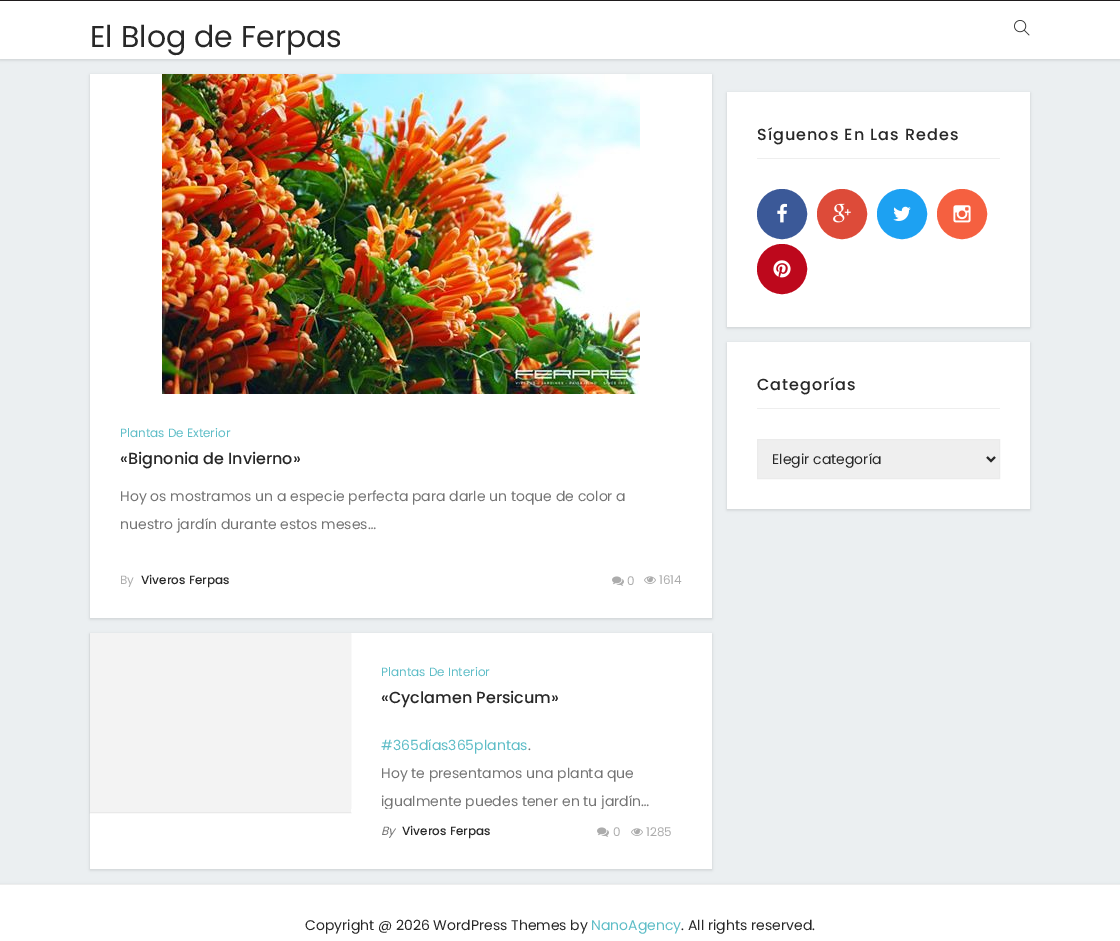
%!PS
<< /PageSize [1120 941] /PageUsesTransparency true >> setpagedevice
/mt/moveto load def
/li/lineto load def
/cp/closepath load def
/fl/fill load def
/st/stroke load def
/gs/gsave load def
/gr/grestore load def
/lw/setlinewidth load def
/co { dup -16 bitshift 255 div exch dup -8 bitshift 255 and 255 div exch 255 and 255 div setrgbcolor } def
/fn { [ exch dup neg 0 0 3 -1 roll 0 0 ] selectfont } def
/tx { co fn moveto show } def
/bx { co rectfill } def
/al { dup .setfillconstantalpha .setstrokeconstantalpha } def
/ci { newpath 0 360 arc closepath } def
/rr { 5 dict begin { /r /h /w /y /x } { exch def } forall
  x r add y moveto x w add y 2 copy h add r arct x w add y h add x 1 index r arct
  x y h add x y r arct x y 2 copy exch w add exch r arct closepath end } def
/sh { 12 dict begin { /a /b /q /h /w /y /x } { exch def } forall gsave /was 0 def
  9 -2 -9 { dup b mul 4 div /e exch def 1 sub .425 mul 2.718 exch exp 1 add a .99 .min exch div /now exch def
    1 1 now sub 1 was sub div sub al /was now def
    w h .min e 2 mul add 0 gt { x e sub y e sub w e 2 mul add h e 2 mul add
      q e add b .6 mul add w h .min 2 div e add .min 0 .max rr fill } if } for grestore end } def
/im { 5 dict begin { /h /w /y /x /name } { exch def } forall
  gsave x y translate w h scale
  w h 8 [w 0 0 h 0 0] name (r) file false 3 colorimage grestore end } def
0 .pushpdf14devicefilter
0 941 translate 1 -1 scale
4 setmiterlimit
0 0 1120 941 16#EBEFF1 bx
16#000000 co
0 1 1120 59 0 1.5 .13 sh
0 1 1120 58 16#FFFFFF bx
0 0 1120 1 16#1F1B1D bx
(media/1.raw) 1014 20 16 16 im
16#000000 co
727 93 303 235 0 1.5 .13 sh
727 92 303 235 16#FFFFFF bx
757 158 243 1 16#EEEEEE bx
16#3B5998 co
782 214 24 ci gs fl gr
2 lw
st
(media/2.raw) 777 203 10 20 im
16#DD4B39 co
842 214 24 ci gs fl gr
st
(media/3.raw) 833 203 18 20 im
16#1DA1F2 co
902 214 24 ci gs fl gr
st
(media/4.raw) 893 206 18 15 im
16#F56040 co
962 214 24 ci gs fl gr
st
(media/5.raw) 953 205 18 18 im
16#BD081C co
782 269 24 ci gs fl gr
st
(media/6.raw) 773 260 18 18 im
16#000000 co
727 343 303 167 0 1.5 .13 sh
727 342 303 167 16#FFFFFF bx
757 408 243 1 16#EEEEEE bx
16#EFEFEF co
757.5 439.5 mt 999.5 439.5 li 999.5 478.5 li 757.5 478.5 li cp gs fl gr
16#EBEBEB co
1 lw
st
16#282828 co
2 lw
987 457 mt 991 461 li 995 457 li st
16#000000 co
90 75 622 544 0 1.5 .13 sh
90 74 622 544 16#FFFFFF bx
(media/7.raw) 162 74 478 320 im
(media/8.raw) 612 576 12 10 im
(media/9.raw) 644 576 12 8 im
16#000000 co
90 634 622 236 0 1.5 .13 sh
90 633 622 236 16#FFFFFF bx
16#000000 co
90 634 261 179 0 .5 .1 sh
90 633 261 179 16#F3F3F3 bx
(media/8.raw) 597 827 12 10 im
(media/9.raw) 631 828 12 8 im
16#000000 co
0 885 1120 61 0 1.5 .13 sh
0 885 1120 56 16#FFFFFF bx
0 884 1120 1 16#EEEEEE bx
(El Blog de Ferpas) 90 47 /Poppins-Regular 30 16#282828 tx
/Poppins-Medium 16 fn
757 140 mt 1 0 (Síguenos En Las Redes) ashow
757 390 mt 1 0 (Categorías) ashow
(Elegir categoría) 772 464 /Poppins-Regular 14 16#282828 tx
(Plantas De Exterior) 120 437 /Poppins-Regular 12 16#5EBDC7 tx
(«Bignonia de Invierno») 120 464 /Poppins-Medium 16 16#282828 tx
(Hoy os mostramos un a especie perfecta para darle un toque de color a) 120 501 /Poppins-Regular 14 16#757575 tx
(nuestro jardín durante estos meses…) 120 529 /Poppins-Regular 14 16#757575 tx
(By) 120 584 /Poppins-Regular 12 16#ACACAC tx
(Viveros Ferpas) 141 584 /Poppins-Medium 12 16#282828 tx
(0) 627 585 /Poppins-Regular 12 16#ACACAC tx
(1614) 659 584 /Poppins-Regular 12 16#ACACAC tx
(Plantas De Interior) 381 676 /Poppins-Regular 12 16#5EBDC7 tx
(«Cyclamen Persicum») 381 703 /Poppins-Medium 16 16#282828 tx
(#365días365plantas) 381 750 /Poppins-Regular 14 16#5EBDC7 tx
(.) 528 750 /Poppins-Regular 14 16#757575 tx
(Hoy te presentamos una planta que) 381 778 /Poppins-Regular 14 16#757575 tx
(igualmente puedes tener en tu jardín…) 381 806 /Poppins-Regular 14 16#757575 tx
351 809 253 3 16#FFFFFF bx
(By) 381 835 /Poppins-Italic 12 16#757575 tx
(Viveros Ferpas) 402 835 /Poppins-Medium 12 16#282828 tx
(0) 613 836 /Poppins-Regular 12 16#ACACAC tx
(1285) 646 836 /Poppins-Regular 12 16#ACACAC tx
(Copyright @ 2026 WordPress Themes by) 305 930 /Poppins-Regular 14 16#282828 tx
(NanoAgency) 591 930 /Poppins-Regular 14 16#5EBDC7 tx
(. All rights reserved.) 681 930 /Poppins-Regular 14 16#282828 tx
.poppdf14devicefilter showpage
